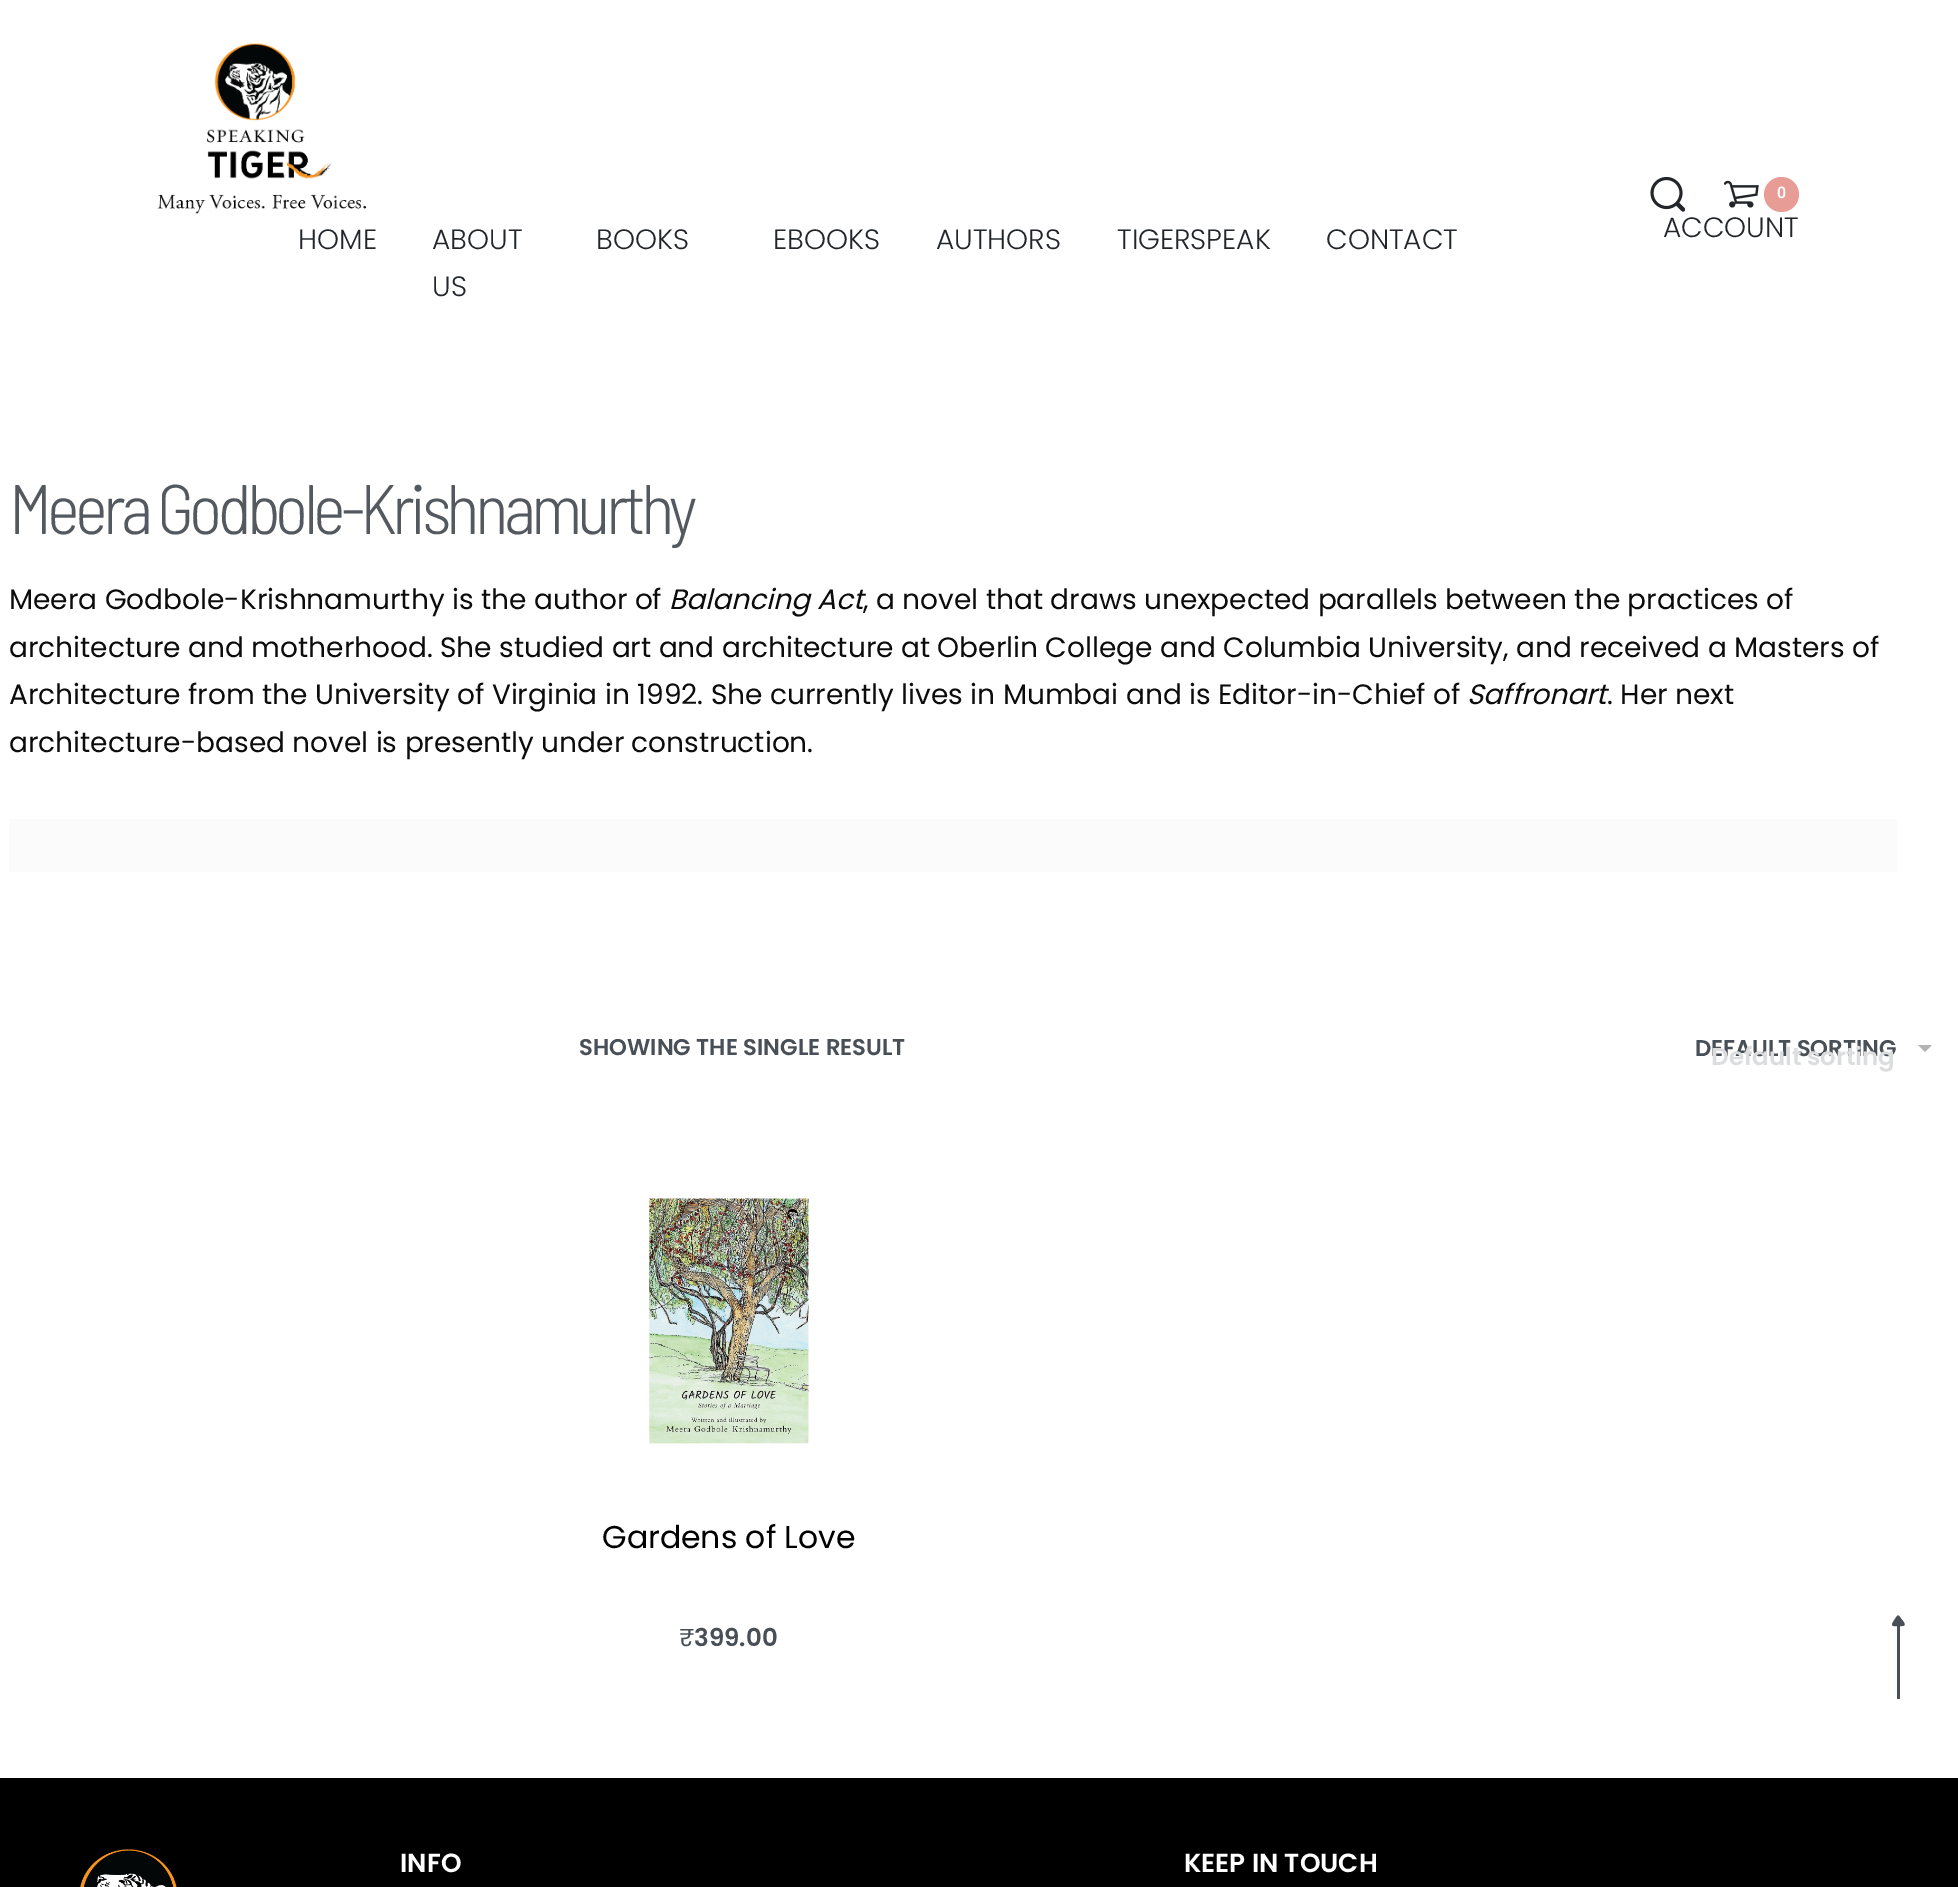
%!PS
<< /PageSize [1958 1887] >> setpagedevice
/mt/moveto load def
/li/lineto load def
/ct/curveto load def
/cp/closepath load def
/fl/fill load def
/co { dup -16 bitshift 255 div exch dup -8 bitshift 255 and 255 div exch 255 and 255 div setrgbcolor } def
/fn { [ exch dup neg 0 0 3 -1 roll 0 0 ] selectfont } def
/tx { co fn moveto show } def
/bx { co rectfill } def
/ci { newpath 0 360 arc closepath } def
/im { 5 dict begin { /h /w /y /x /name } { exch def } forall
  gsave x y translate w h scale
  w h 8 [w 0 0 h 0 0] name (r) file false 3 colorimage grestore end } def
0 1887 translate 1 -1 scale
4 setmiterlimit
0 0 1958 1887 16#FFFFFF bx
(media/1.raw) 1650 177 35 35 im
(media/2.raw) 1724 180 35 28 im
16#E79C96 co
1781.5 194.5 17.5 ci fl
(media/3.raw) 157 43 209 171 im
9 819 1888 53 16#FBFBFB bx
16#B3B3B3 co
1918 1045 mt 1932 1045 li 1925 1052 li cp fl
(media/4.raw) 649 1198 160 246 im
0 1778 1958 109 16#000000 bx
(media/5.raw) 80 1849 97 38 im
16#484F56 co
1897 1698 mt 1897 1626 li 1900 1626 li 1900 1698 li 1900 1699 1899 1699 1899 1699 ct 1898 1699 1897 1699 1897 1698 ct cp fl
1897 1616 mt 1896 1617.5 1892 1623 1892 1624.5 ct 1892 1626.5 1895.5 1626 1896.5 1626 ct 1898 1626 1904 1626.5 1904.5 1625 ct 1905.5 1623.5 1902 1620 1901 1618.5 ct 1900.5 1618 1898.5 1614 1897 1616 ct cp fl
(0) 1777 198 /Roboto-SemiBold 16 16#FFFFFF tx
(ACCOUNT) 1663 237 /Poppins-Light 28 16#22262A tx
(HOME) 298 249 /Poppins-Light 28 16#22262A tx
(ABOUT) 432 249 /Poppins-Light 28 16#22262A tx
(US) 432 296 /Poppins-Light 28 16#22262A tx
(BOOKS) 596 249 /Poppins-Light 28 16#22262A tx
(EBOOKS) 773 249 /Poppins-Light 28 16#22262A tx
(AUTHORS) 936 249 /Poppins-Light 28 16#22262A tx
(TIGERSPEAK) 1117 249 /Poppins-Light 28 16#22262A tx
(CONTACT) 1326 249 /Poppins-Light 28 16#22262A tx
/BarlowSemiCondensed-Light 70 fn
16#54595F co
9 534 mt -4.75 0 (Meera Godbole-Krishnamurthy) ashow
(Meera Godbole-Krishnamurthy is the author of) 9 609 /Poppins-Regular 28 16#0C0C0C tx
(Balancing Act) 669 609 /Poppins-Italic 28 16#0C0C0C tx
(, a novel that draws unexpected parallels between the practices of) 863 609 /Poppins-Regular 28 16#0C0C0C tx
(architecture and motherhood. She studied art and architecture at Oberlin College and Columbia University, and received a Masters of) 9 657 /Poppins-Regular 28 16#0C0C0C tx
(Architecture from the University of Virginia in 1992. She currently lives in Mumbai and is Editor-in-Chief of) 9 704 /Poppins-Regular 28 16#0C0C0C tx
(Saffronart) 1467 704 /Poppins-Italic 28 16#0C0C0C tx
(. Her next) 1607 704 /Poppins-Regular 28 16#0C0C0C tx
(architecture-based novel is presently under construction.) 9 752 /Poppins-Regular 28 16#0C0C0C tx
(SHOWING THE SINGLE RESULT) 579 1055 /Poppins-SemiBold 22.75 16#484F56 tx
(DEFAULT SORTING) 1695 1056 /Poppins-SemiBold 22.75 16#484F56 tx
(Default sorting) 1711 1065 /Poppins-SemiBold 24.5 16#DCDDDF tx
(Gardens of Love) 602 1548 /Poppins-Regular 31.5 16#000000 tx
(₹) 679 1646 /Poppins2-Regular 24.5 16#484F56 tx
(399.00) 694 1646 /Poppins-SemiBold 24.5 16#484F56 tx
(INFO) 400 1872 /Poppins-SemiBold 26.25 16#FFFFFF tx
(KEEP IN TOUCH) 1184 1872 /Poppins-SemiBold 26.25 16#FFFFFF tx
showpage
